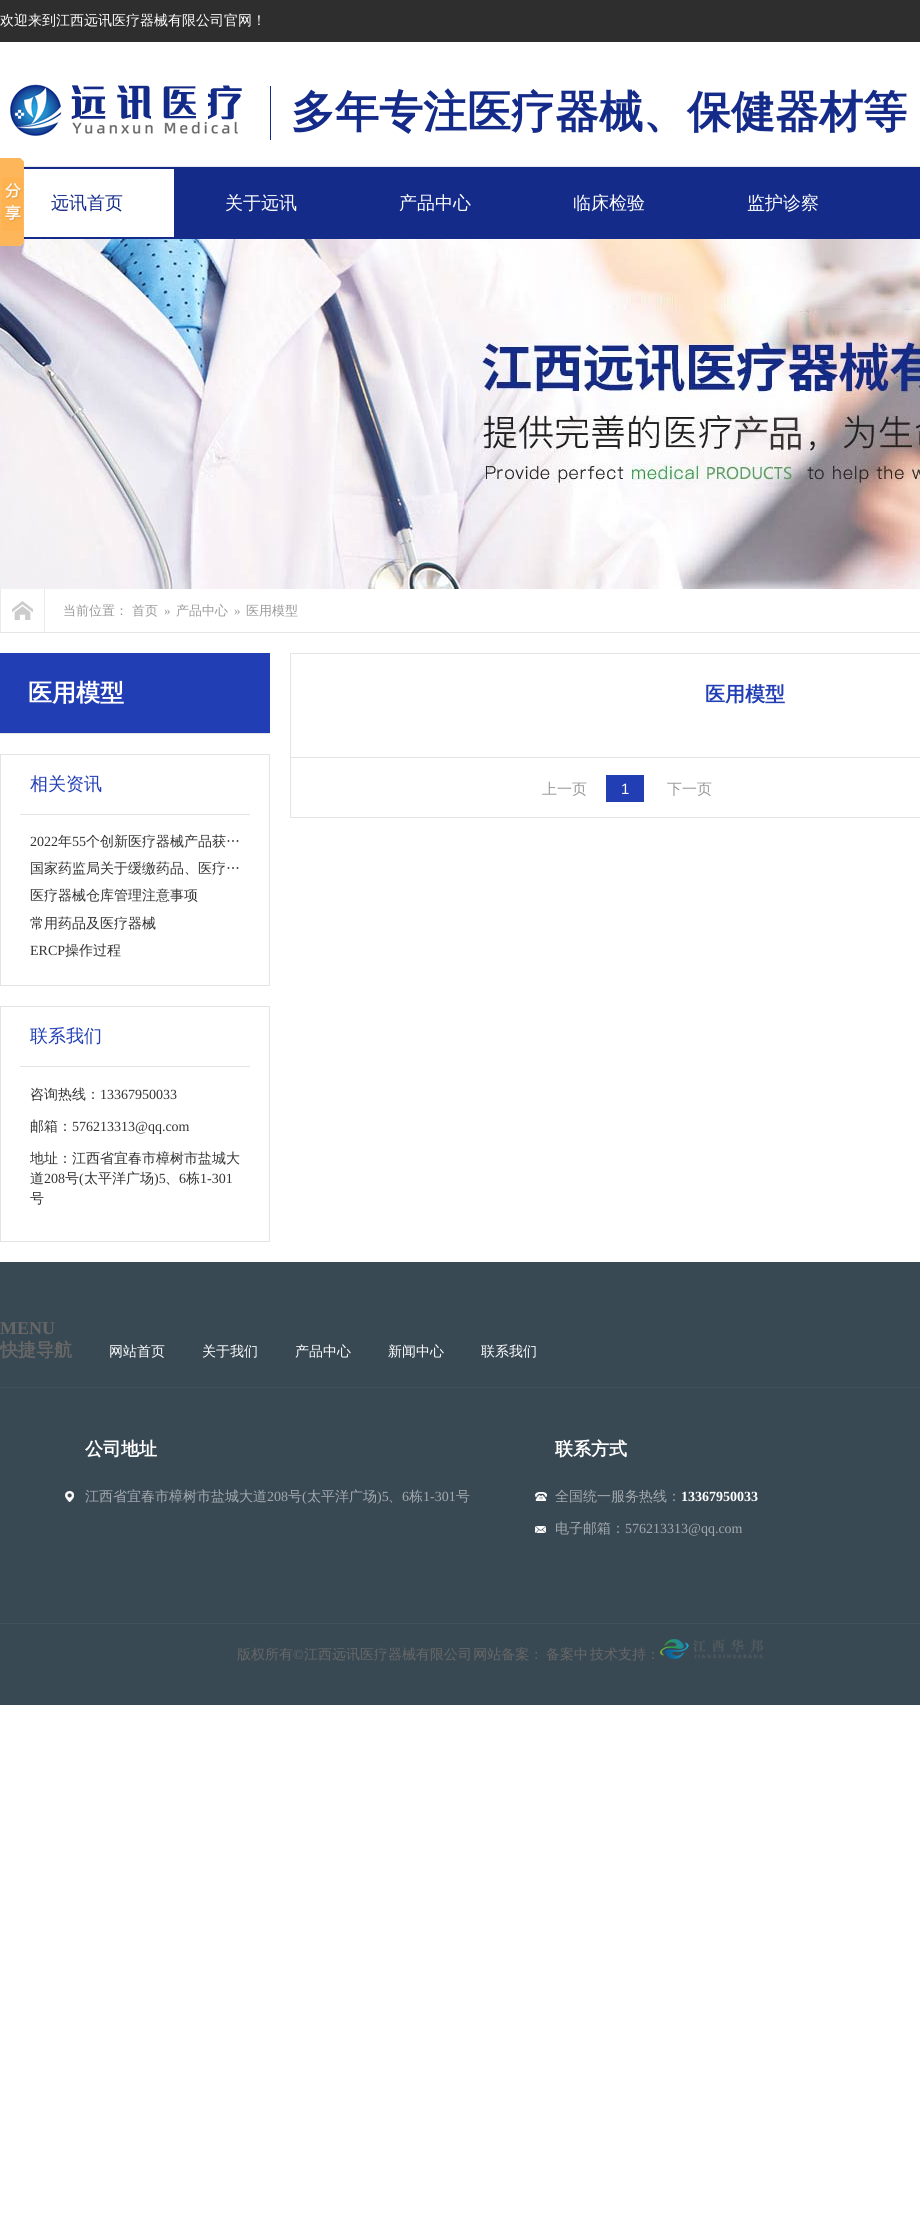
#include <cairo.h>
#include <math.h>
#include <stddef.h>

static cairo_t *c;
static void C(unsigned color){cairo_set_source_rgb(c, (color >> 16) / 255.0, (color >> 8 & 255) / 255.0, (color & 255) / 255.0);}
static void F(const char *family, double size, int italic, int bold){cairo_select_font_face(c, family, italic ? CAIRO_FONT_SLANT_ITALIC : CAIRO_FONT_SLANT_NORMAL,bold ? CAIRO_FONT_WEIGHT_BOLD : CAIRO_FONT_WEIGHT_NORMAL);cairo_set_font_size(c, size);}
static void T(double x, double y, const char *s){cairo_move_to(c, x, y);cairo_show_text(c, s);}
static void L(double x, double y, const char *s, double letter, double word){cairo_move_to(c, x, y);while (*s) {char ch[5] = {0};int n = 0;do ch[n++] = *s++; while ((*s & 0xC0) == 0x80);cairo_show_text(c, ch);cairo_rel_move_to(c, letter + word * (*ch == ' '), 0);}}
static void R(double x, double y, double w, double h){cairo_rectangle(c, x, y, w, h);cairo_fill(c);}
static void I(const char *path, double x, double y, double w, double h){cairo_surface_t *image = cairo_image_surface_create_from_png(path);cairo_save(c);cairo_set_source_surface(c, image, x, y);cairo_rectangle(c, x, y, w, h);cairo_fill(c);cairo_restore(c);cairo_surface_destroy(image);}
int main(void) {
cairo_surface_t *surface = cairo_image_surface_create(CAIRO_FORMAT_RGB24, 920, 2217);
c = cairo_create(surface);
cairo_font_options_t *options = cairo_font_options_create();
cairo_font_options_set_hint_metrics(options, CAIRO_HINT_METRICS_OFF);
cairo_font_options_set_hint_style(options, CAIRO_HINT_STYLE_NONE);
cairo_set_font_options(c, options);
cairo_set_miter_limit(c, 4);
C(0xffffff);
cairo_paint(c);
C(0x2e2e2e);
R(0,0,920,42);
F("WenQuanYi Zen Hei Medium",14,0,0);
C(0xffffff);
T(0,25,"欢迎来到江西远讯医疗器械有限公司官网！");
C(0xe9e9e9);
R(24,166,896,1);
I("1.png",10,84,232,52);
C(0x142b89);
R(270,86,1,54);
F("WenQuanYi Zen Hei",44,0,1);
T(291,127,"多年专注医疗器械、保健器材等");
I("3.png",0,239,920,350);
I("2.png",0,158,24,88);
R(24,167,896,72);
C(0xffffff);
R(24,169,150,68);
F("WenQuanYi Zen Hei Medium",18,0,0);
C(0x142b89);
T(51,209,"远讯首页");
C(0xffffff);
T(225,209,"关于远讯");
T(399,209,"产品中心");
T(573,209,"临床检验");
T(747,209,"监护诊察");
C(0xe4e4e4);
R(0,632,920,1);
I("4.png",12,601,21,19);
C(0xeaeaea);
R(44,589,1,43);
R(0,589,1,43);
F("WenQuanYi Zen Hei Medium",13,0,0);
C(0x999999);
T(63,615,"当前位置： 首页");
F("Liberation Serif",13,0,0);
T(164,615,"»");
F("WenQuanYi Zen Hei Medium",13,0,0);
T(176,615,"产品中心");
F("Liberation Serif",13,0,0);
T(234,615,"»");
F("WenQuanYi Zen Hei Medium",13,0,0);
T(246,615,"医用模型");
C(0x213eb4);
R(0,653,270,80);
F("WenQuanYi Zen Hei",24,0,1);
C(0xffffff);
T(28,701,"医用模型");
C(0xe4e4e4);
R(0,733,270,1);
cairo_rectangle(c,.5,754.5,269,231);
cairo_set_line_width(c,1);
cairo_stroke(c);
R(20,814,230,1);
F("WenQuanYi Zen Hei Medium",18,0,0);
C(0x213eb4);
T(30,790,"相关资讯");
F("Liberation Serif",14,0,0);
C(0x333333);
T(30,846,"2022");
F("WenQuanYi Zen Hei Medium",14,0,0);
T(58,846,"年");
F("Liberation Serif",14,0,0);
T(72,846,"55");
F("WenQuanYi Zen Hei Medium",14,0,0);
T(86,846,"个创新医疗器械产品获…");
T(30,873,"国家药监局关于缓缴药品、医疗…");
T(30,900,"医疗器械仓库管理注意事项");
T(30,928,"常用药品及医疗器械");
F("Liberation Serif",14,0,0);
T(30,955,"ERCP");
F("WenQuanYi Zen Hei Medium",14,0,0);
T(65,955,"操作过程");
cairo_rectangle(c,.5,1006.5,269,235);
C(0xe4e4e4);
cairo_stroke(c);
R(20,1066,230,1);
F("WenQuanYi Zen Hei Medium",18,0,0);
C(0x213eb4);
T(30,1042,"联系我们");
F("WenQuanYi Zen Hei Medium",14,0,0);
C(0x333333);
T(30,1099,"咨询热线：");
F("Liberation Serif",14,0,0);
T(100,1099,"13367950033");
F("WenQuanYi Zen Hei Medium",14,0,0);
T(30,1131,"邮箱：");
F("Liberation Serif",14,0,0);
T(72,1131,"576213313@qq.com");
F("WenQuanYi Zen Hei Medium",14,0,0);
T(30,1163,"地址：江西省宜春市樟树市盐城大");
T(30,1183,"道");
F("Liberation Serif",14,0,0);
T(44,1183,"208");
F("WenQuanYi Zen Hei Medium",14,0,0);
T(65,1183,"号");
F("Liberation Serif",14,0,0);
T(79,1183,"(");
F("WenQuanYi Zen Hei Medium",14,0,0);
T(84,1183,"太平洋广场");
F("Liberation Serif",14,0,0);
T(154,1183,")5");
F("WenQuanYi Zen Hei Medium",14,0,0);
T(165,1183,"、");
F("Liberation Serif",14,0,0);
T(179,1183,"6");
F("WenQuanYi Zen Hei Medium",14,0,0);
T(186,1183,"栋");
F("Liberation Serif",14,0,0);
T(200,1183,"1-301");
F("WenQuanYi Zen Hei Medium",14,0,0);
T(30,1203,"号");
cairo_rectangle(c,290.5,653.5,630,164);
C(0xe4e4e4);
cairo_stroke(c);
F("WenQuanYi Zen Hei",20,0,1);
C(0x213eb4);
T(705,701,"医用模型");
C(0xe4e4e4);
R(291,757,629,1);
F("WenQuanYi Zen Hei Medium",15,0,0);
C(0x999999);
T(542,794,"上一页");
C(0x213eb4);
R(606,775,38,27);
F("Liberation Sans",15,0,0);
C(0xffffff);
T(621,794,"1");
F("WenQuanYi Zen Hei Medium",15,0,0);
C(0x999999);
T(667,794,"下一页");
C(0x394954);
R(0,1262,920,361);
C(0x41525e);
R(0,1387,920,1);
F("Liberation Serif",18,0,1);
C(0x666666);
T(0,1334,"MENU");
F("WenQuanYi Zen Hei",18,0,1);
T(0,1356,"快捷导航");
F("WenQuanYi Zen Hei Medium",14,0,0);
C(0xffffff);
T(109,1356,"网站首页");
T(202,1356,"关于我们");
T(295,1356,"产品中心");
T(388,1356,"新闻中心");
T(481,1356,"联系我们");
F("WenQuanYi Zen Hei",18,0,1);
T(85,1455,"公司地址");
I("5.png",65,1491,9,11);
F("WenQuanYi Zen Hei Medium",14,0,0);
C(0xa2a9ae);
T(85,1501,"江西省宜春市樟树市盐城大道");
F("Liberation Serif",14,0,0);
T(267,1501,"208");
F("WenQuanYi Zen Hei Medium",14,0,0);
T(288,1501,"号");
F("Liberation Serif",14,0,0);
T(302,1501,"(");
F("WenQuanYi Zen Hei Medium",14,0,0);
T(307,1501,"太平洋广场");
F("Liberation Serif",14,0,0);
T(377,1501,")5");
F("WenQuanYi Zen Hei Medium",14,0,0);
T(388,1501,"、");
F("Liberation Serif",14,0,0);
T(402,1501,"6");
F("WenQuanYi Zen Hei Medium",14,0,0);
T(409,1501,"栋");
F("Liberation Serif",14,0,0);
T(423,1501,"1-301");
F("WenQuanYi Zen Hei Medium",14,0,0);
T(456,1501,"号");
F("WenQuanYi Zen Hei",18,0,1);
C(0xffffff);
T(555,1455,"联系方式");
I("6.png",535,1492,12,9);
F("WenQuanYi Zen Hei Medium",14,0,0);
C(0xa2a9ae);
T(555,1501,"全国统一服务热线：");
F("Liberation Serif",14,0,1);
C(0xffffff);
T(681,1501,"13367950033");
I("7.png",535,1526,11,7);
F("WenQuanYi Zen Hei Medium",14,0,0);
C(0xa2a9ae);
T(555,1533,"电子邮箱：");
F("Liberation Serif",14,0,0);
T(625,1533,"576213313@qq.com");
C(0x394954);
R(0,1624,920,81);
C(0x41525e);
R(0,1623,920,1);
F("WenQuanYi Zen Hei Medium",14,0,0);
C(0x666666);
T(237,1659,"版权所有");
F("Liberation Serif",14,0,0);
T(293,1659,"©");
F("WenQuanYi Zen Hei Medium",14,0,0);
L(304,1659,"江西远讯医疗器械有限公司 网站备案：",0,-3);
T(546,1659,"备案中");
T(590,1659,"技术支持：");
I("8.png",660,1639,103,20);
cairo_surface_write_to_png(surface, "o.png");
cairo_font_options_destroy(options);
cairo_destroy(c);
cairo_surface_destroy(surface);
return 0;
}
